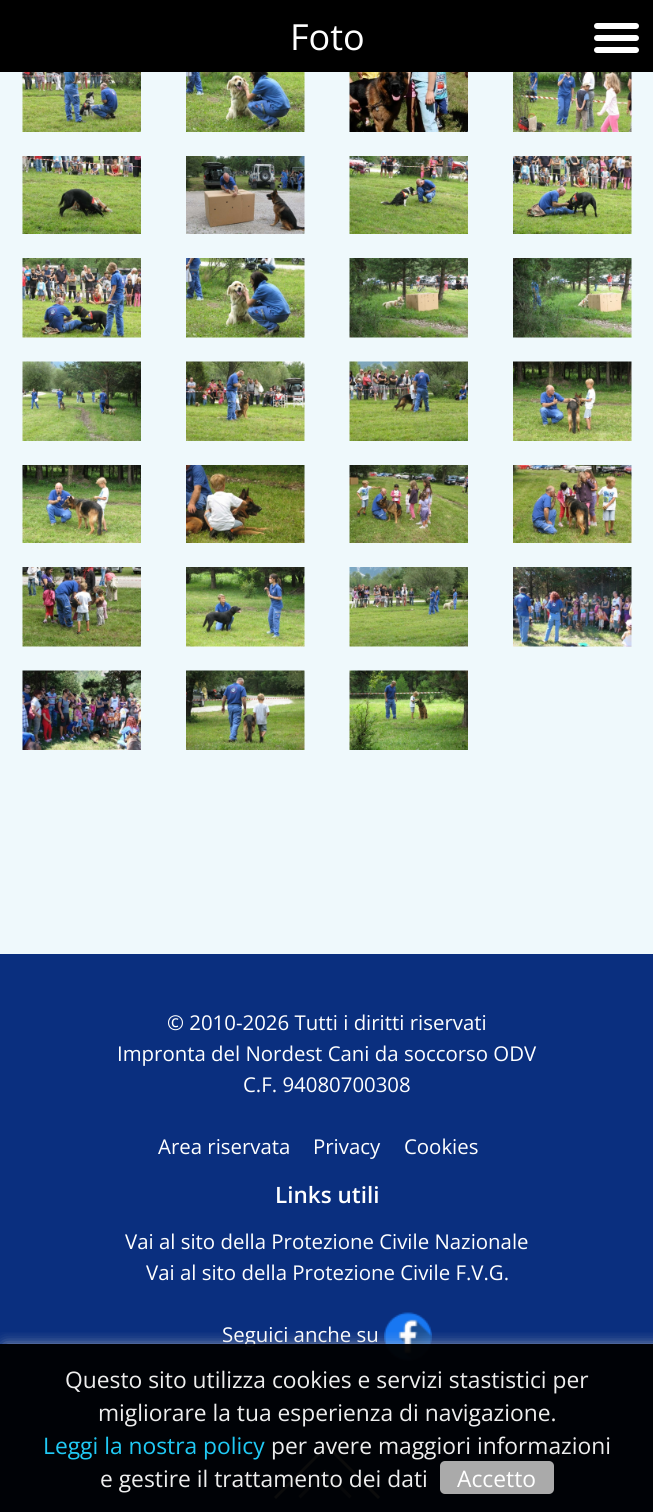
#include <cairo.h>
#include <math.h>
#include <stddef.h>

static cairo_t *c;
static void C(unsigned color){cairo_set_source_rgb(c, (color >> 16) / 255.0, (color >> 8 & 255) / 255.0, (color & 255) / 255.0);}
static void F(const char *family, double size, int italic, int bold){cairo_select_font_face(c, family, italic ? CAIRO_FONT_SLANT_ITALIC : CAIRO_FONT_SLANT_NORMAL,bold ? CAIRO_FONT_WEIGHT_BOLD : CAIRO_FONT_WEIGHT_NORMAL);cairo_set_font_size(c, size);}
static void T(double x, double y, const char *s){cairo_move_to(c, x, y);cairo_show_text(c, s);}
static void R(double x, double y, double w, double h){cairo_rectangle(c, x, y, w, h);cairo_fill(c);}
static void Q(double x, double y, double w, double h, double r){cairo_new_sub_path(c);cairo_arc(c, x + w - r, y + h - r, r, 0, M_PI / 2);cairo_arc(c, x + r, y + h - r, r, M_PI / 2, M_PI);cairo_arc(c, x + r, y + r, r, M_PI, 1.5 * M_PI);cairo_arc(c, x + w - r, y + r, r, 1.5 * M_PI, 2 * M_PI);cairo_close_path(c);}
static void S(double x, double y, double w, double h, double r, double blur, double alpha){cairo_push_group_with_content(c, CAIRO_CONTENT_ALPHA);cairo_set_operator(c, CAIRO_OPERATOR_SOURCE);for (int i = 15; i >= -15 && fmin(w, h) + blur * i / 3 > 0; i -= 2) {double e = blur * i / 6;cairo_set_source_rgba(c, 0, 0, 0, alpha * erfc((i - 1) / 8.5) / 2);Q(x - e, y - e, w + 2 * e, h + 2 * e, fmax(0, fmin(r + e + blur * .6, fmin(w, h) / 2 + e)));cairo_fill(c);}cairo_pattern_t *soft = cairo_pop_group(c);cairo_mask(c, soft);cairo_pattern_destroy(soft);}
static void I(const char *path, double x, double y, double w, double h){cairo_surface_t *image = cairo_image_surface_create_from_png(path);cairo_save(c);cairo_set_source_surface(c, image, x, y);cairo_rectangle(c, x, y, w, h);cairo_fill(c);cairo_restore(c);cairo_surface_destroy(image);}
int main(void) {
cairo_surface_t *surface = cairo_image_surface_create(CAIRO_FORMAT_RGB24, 653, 1512);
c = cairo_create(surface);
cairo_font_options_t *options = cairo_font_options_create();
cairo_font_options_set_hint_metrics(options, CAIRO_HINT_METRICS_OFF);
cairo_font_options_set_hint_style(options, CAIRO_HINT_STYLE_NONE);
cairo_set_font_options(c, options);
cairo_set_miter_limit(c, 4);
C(0xeff9fc);
cairo_paint(c);
C(0x000000);
R(0,0,653,72);
F("Open Sans",36,0,0);
C(0xffffff);
T(290,50,"Foto");
Q(594,35,45,6,3);
cairo_fill(c);
Q(594,23,45,6,3);
cairo_fill(c);
Q(594,47,45,6,3);
cairo_fill(c);
I("1.png",22,72,119,60);
I("2.png",186,72,119,60);
I("3.png",349,72,119,60);
I("4.png",513,72,119,60);
I("5.png",22,156,119,78);
I("6.png",186,156,119,78);
I("7.png",349,156,119,78);
I("8.png",513,156,119,78);
I("9.png",22,258,119,80);
I("10.png",186,258,119,80);
I("11.png",349,258,119,80);
I("12.png",513,258,119,80);
I("13.png",22,361,119,80);
I("14.png",186,361,119,80);
I("15.png",349,361,119,80);
I("16.png",513,361,119,80);
I("17.png",22,465,119,78);
I("18.png",186,465,119,78);
I("19.png",349,465,119,78);
I("20.png",513,465,119,78);
I("21.png",22,567,119,80);
I("22.png",186,567,119,80);
I("23.png",349,567,119,80);
I("24.png",513,567,119,80);
I("25.png",22,670,119,80);
I("26.png",186,670,119,80);
I("27.png",349,670,119,80);
C(0x0a2f7f);
R(0,954,653,558);
F("Open Sans",20.4,0,0);
C(0xffffff);
T(167,1030,"© 2010-2026 Tutti i diritti riservati");
T(117,1061,"Impronta del Nordest Cani da soccorso ODV");
T(243,1092,"C.F. 94080700308");
T(158,1154,"Area riservata");
T(313,1154,"Privacy");
T(404,1154,"Cookies");
F("Open Sans SemiBold",22.5,0,0);
T(275,1203,"Links utili");
F("Open Sans",20.4,0,0);
T(125,1249,"Vai al sito della Protezione Civile Nazionale");
T(146,1280,"Vai al sito della Protezione Civile F.V.G.");
T(222,1342,"Seguici anche su");
I("28.png",384,1312,48,49);
cairo_new_path(c);
cairo_move_to(c,276,1499);
cairo_line_to(c,274,1497);
cairo_line_to(c,327,1444);
cairo_line_to(c,329,1446);
cairo_close_path(c);
cairo_fill(c);
cairo_new_path(c);
cairo_move_to(c,378,1499);
cairo_line_to(c,325,1446);
cairo_line_to(c,327,1444);
cairo_line_to(c,380,1497);
cairo_close_path(c);
cairo_fill(c);
C(0x9daccc);
cairo_new_path(c);
cairo_move_to(c,300.5,1498.5);
cairo_line_to(c,298.5,1496);
cairo_line_to(c,325,1469.5);
cairo_line_to(c,327,1472);
cairo_close_path(c);
cairo_fill(c);
cairo_new_path(c);
cairo_move_to(c,349.5,1498.5);
cairo_line_to(c,323,1472);
cairo_line_to(c,325,1469.5);
cairo_line_to(c,351.5,1496);
cairo_close_path(c);
cairo_fill(c);
cairo_save(c);
cairo_rectangle(c,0,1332,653,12);
cairo_clip(c);
C(0xcccccc);
S(5,1347,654,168,0,7.5,1);
cairo_restore(c);
cairo_set_source_rgba(c,0,0,0,0.95);
R(0,1344,653,168);
F("Open Sans",22.8,0,0);
C(0xeeeeee);
T(65,1388,"Questo sito utilizza cookies e servizi stastistici per");
T(98,1421,"migliorare la tua esperienza di navigazione.");
C(0x20caf5);
T(43,1454,"Leggi la nostra policy");
C(0xeeeeee);
T(271,1454,"per avere maggiori informazioni");
T(100,1487,"e gestire il trattamento dei dati");
C(0xaaaaaa);
Q(440,1461,114,33,5);
cairo_fill(c);
C(0xffffff);
T(457,1487,"Accetto");
cairo_surface_write_to_png(surface, "o.png");
cairo_font_options_destroy(options);
cairo_destroy(c);
cairo_surface_destroy(surface);
return 0;
}
